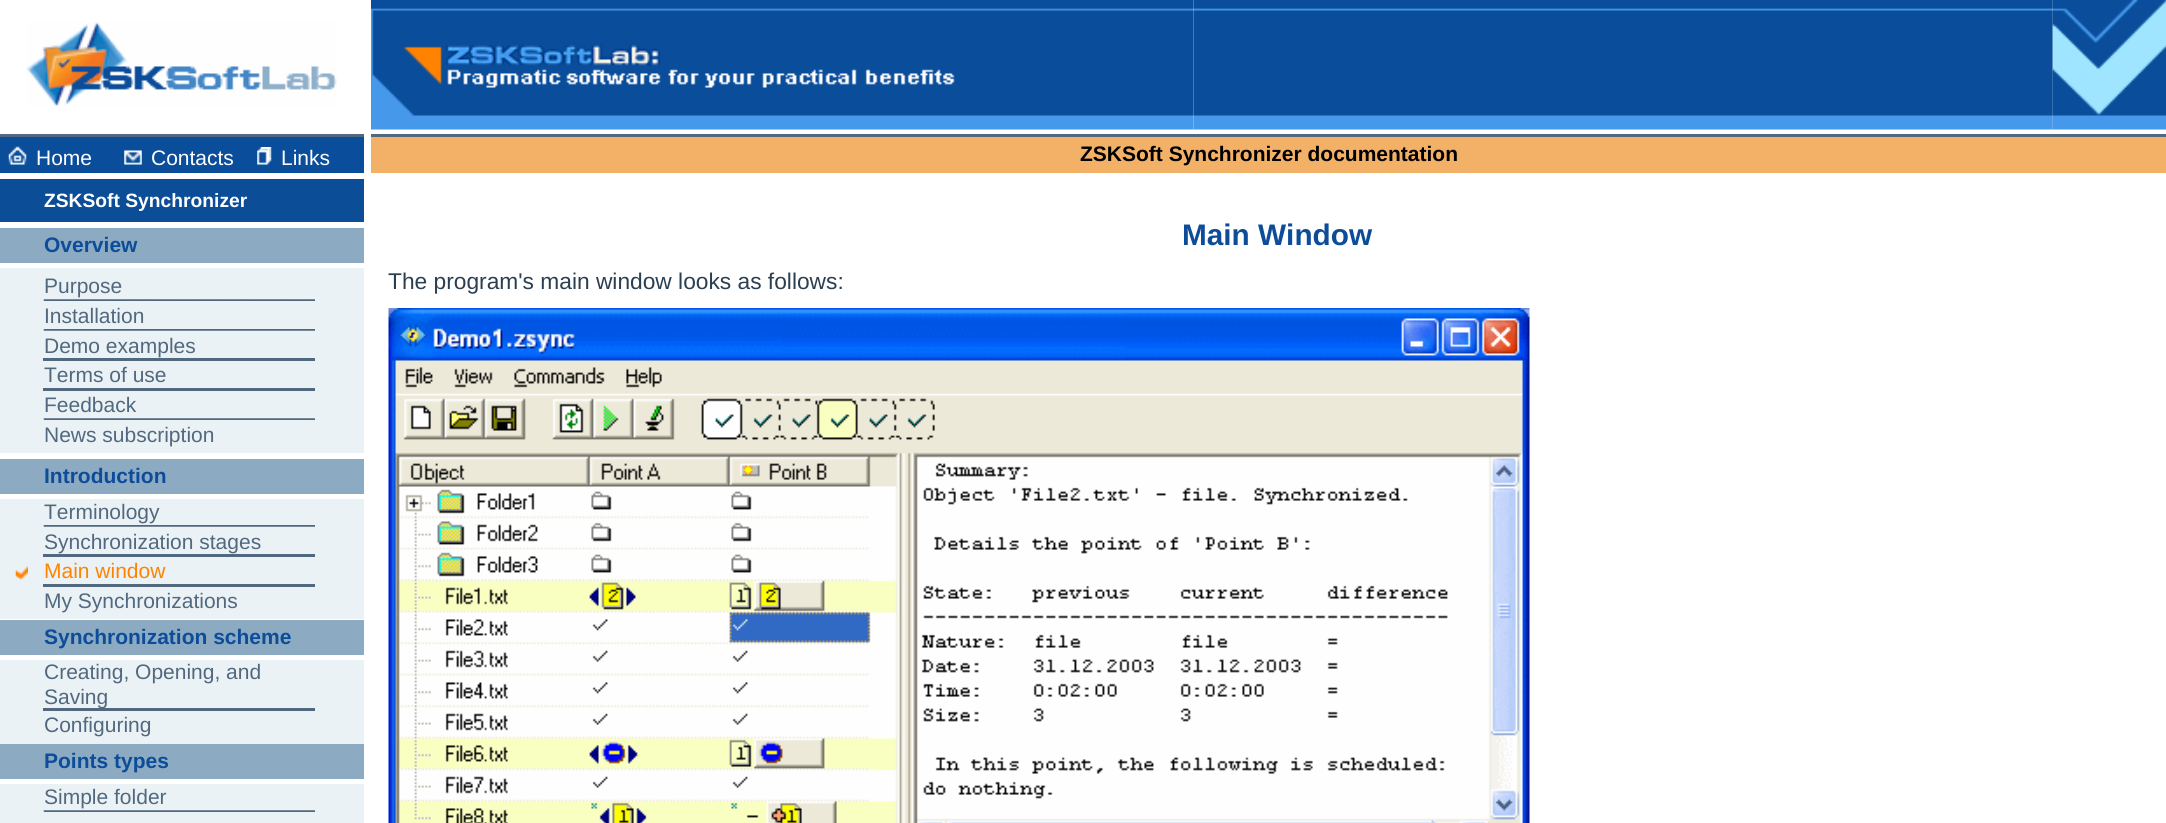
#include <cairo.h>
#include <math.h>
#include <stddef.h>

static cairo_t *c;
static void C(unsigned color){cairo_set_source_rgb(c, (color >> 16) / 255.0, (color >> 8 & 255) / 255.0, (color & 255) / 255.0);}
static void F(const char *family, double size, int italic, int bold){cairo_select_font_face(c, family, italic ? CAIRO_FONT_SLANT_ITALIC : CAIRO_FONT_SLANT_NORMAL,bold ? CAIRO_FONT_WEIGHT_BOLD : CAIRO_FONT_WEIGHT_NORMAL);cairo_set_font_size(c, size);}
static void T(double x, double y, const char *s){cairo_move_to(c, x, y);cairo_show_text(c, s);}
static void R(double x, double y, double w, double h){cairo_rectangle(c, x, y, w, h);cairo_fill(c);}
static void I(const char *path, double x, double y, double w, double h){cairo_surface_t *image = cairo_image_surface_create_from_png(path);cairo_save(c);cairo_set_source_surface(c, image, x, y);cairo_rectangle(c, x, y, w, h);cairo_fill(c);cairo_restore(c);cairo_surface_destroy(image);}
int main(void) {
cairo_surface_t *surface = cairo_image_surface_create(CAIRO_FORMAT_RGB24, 2166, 823);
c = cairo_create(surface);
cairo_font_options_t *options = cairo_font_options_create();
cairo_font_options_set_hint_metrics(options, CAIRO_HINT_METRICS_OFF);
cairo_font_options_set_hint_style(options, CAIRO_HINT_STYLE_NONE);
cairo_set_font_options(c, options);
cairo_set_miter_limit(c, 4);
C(0xffffff);
cairo_paint(c);
I("1.png",26,22,311,84);
I("3.png",1193,0,860,130);
I("2.png",371,0,823,130);
I("4.png",2052,0,114,130);
C(0x0a4d9a);
R(0,137,364,36);
C(0x52687f);
R(0,134,364,3);
I("5.png",8,146,19,19);
F("Liberation Sans",21,0,0);
C(0xfffeff);
T(36,165,"Home");
I("6.png",124,150,18,15);
T(151,165,"Contacts");
I("7.png",257,147,15,18);
T(281,165,"Links");
C(0xf3b167);
R(371,137,1795,36);
C(0x52687f);
R(371,134,1795,3);
F("Liberation Sans",21,0,1);
C(0x000000);
T(1080,161,"ZSKSoft Synchronizer documentation");
C(0x0b4d97);
R(0,179,364,43);
F("Liberation Sans",19.25,0,1);
C(0xfffeff);
T(44,207,"ZSKSoft Synchronizer");
C(0x8cabc3);
R(0,228,364,35);
F("Liberation Sans",21,0,1);
C(0x0d4c99);
T(44,252,"Overview");
C(0xebf2f5);
R(0,268,364,185);
F("Liberation Sans",21,0,0);
C(0x51687f);
T(44,293,"Purpose");
I("8.png",43,299,272,2);
T(44,323,"Installation");
I("9.png",43,329,272,2);
T(44,353,"Demo examples");
R(43,358,272,3);
T(44,382,"Terms of use");
R(43,388,272,3);
T(44,412,"Feedback");
I("8.png",43,418,272,2);
T(44,442,"News subscription");
C(0x8cabc3);
R(0,459,364,35);
F("Liberation Sans",21,0,1);
C(0x0d4c99);
T(44,483,"Introduction");
C(0xebf2f5);
R(0,499,364,120);
F("Liberation Sans",21,0,0);
C(0x51687f);
T(44,519,"Terminology");
I("9.png",43,525,272,2);
T(44,549,"Synchronization stages");
R(43,554,272,3);
I("10.png",15,565,13,15);
C(0xff8200);
T(44,578,"Main window");
C(0x51687f);
R(43,584,272,3);
T(44,608,"My Synchronizations");
C(0x8cabc3);
R(0,620,364,35);
F("Liberation Sans",21,0,1);
C(0x0d4c99);
T(44,644,"Synchronization scheme");
C(0xebf2f5);
R(0,660,364,84);
F("Liberation Sans",21,0,0);
C(0x51687f);
T(44,679,"Creating, Opening, and");
T(44,704,"Saving");
R(43,708,272,3);
T(44,732,"Configuring");
C(0x8cabc3);
R(0,744,364,35);
F("Liberation Sans",21,0,1);
C(0x0d4c99);
T(44,768,"Points types");
C(0xebf2f5);
R(0,784,364,39);
F("Liberation Sans",21,0,0);
C(0x51687f);
T(44,804,"Simple folder");
I("8.png",43,810,272,2);
F("Liberation Sans",29.75,0,1);
C(0x0d4c99);
T(1182,245,"Main Window");
F("Liberation Sans",22.75,0,0);
C(0x2b3f50);
T(388,289,"The program's main window looks as follows:");
I("11.png",388,308,1142,515);
cairo_surface_write_to_png(surface, "o.png");
cairo_font_options_destroy(options);
cairo_destroy(c);
cairo_surface_destroy(surface);
return 0;
}
